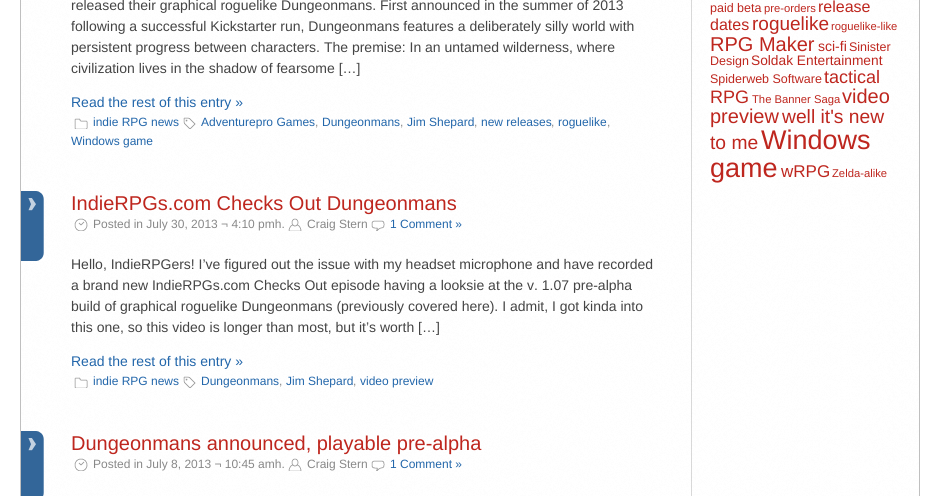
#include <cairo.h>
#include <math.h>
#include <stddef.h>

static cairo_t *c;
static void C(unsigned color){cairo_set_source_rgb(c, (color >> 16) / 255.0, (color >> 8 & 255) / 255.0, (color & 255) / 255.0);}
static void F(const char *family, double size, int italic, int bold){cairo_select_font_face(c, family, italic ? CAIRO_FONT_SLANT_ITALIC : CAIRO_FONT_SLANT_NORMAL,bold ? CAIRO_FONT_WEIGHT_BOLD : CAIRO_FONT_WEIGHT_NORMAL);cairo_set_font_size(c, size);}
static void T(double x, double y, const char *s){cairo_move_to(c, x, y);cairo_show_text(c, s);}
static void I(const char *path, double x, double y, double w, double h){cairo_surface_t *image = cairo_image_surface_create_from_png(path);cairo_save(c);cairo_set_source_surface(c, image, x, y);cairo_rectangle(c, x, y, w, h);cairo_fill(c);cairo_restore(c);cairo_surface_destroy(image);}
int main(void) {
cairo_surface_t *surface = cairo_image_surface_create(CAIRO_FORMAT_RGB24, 929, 496);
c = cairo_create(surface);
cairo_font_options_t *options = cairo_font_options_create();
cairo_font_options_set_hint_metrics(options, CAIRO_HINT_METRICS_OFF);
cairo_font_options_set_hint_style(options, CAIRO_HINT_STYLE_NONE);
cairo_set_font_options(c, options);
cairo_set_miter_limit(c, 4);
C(0xffffff);
cairo_paint(c);
I("1.png",20,0,900,496);
F("Liberation Sans",14,0,0);
C(0x444444);
T(71,10,"released their graphical roguelike Dungeonmans. First announced in the summer of 2013");
T(71,31,"following a successful Kickstarter run, Dungeonmans features a deliberately silly world with");
T(71,52,"persistent progress between characters. The premise: In an untamed wilderness, where");
T(71,73,"civilization lives in the shadow of fearsome […]");
C(0x2266aa);
T(71,107,"Read the rest of this entry »");
I("2.png",74,118,14,11);
F("Liberation Sans",12,0,0);
T(93,126,"indie RPG news");
I("3.png",183,117,13,12);
T(201,126,"Adventurepro Games");
C(0x888888);
T(315,126,",");
C(0x2266aa);
T(322,126,"Dungeonmans");
C(0x888888);
T(400,126,",");
C(0x2266aa);
T(407,126,"Jim Shepard");
C(0x888888);
T(474,126,",");
C(0x2266aa);
T(481,126,"new releases");
C(0x888888);
T(551,126,",");
C(0x2266aa);
T(558,126,"roguelike");
C(0x888888);
T(607,126,",");
C(0x2266aa);
T(71,145,"Windows game");
I("4.png",21,191,23,70);
F("Liberation Sans",20,0,0);
C(0xbe261e);
T(71,210,"IndieRPGs.com Checks Out Dungeonmans");
I("5.png",74,218,14,13);
F("Liberation Sans",12,0,0);
C(0x888888);
T(93,228,"Posted in July 30, 2013 ¬ 4:10 pmh.");
I("6.png",288,218,14,13);
T(307,228,"Craig Stern");
I("7.png",371,220,14,11);
C(0x2266aa);
T(390,228,"1 Comment »");
F("Liberation Sans",14,0,0);
C(0x444444);
T(71,269,"Hello, IndieRPGers! I’ve figured out the issue with my headset microphone and have recorded");
T(71,290,"a brand new IndieRPGs.com Checks Out episode having a looksie at the v. 1.07 pre-alpha");
T(71,311,"build of graphical roguelike Dungeonmans (previously covered here). I admit, I got kinda into");
T(71,332,"this one, so this video is longer than most, but it’s worth […]");
C(0x2266aa);
T(71,366,"Read the rest of this entry »");
I("2.png",74,377,14,11);
F("Liberation Sans",12,0,0);
T(93,385,"indie RPG news");
I("3.png",183,376,13,12);
T(201,385,"Dungeonmans");
C(0x888888);
T(279,385,",");
C(0x2266aa);
T(286,385,"Jim Shepard");
C(0x888888);
T(353,385,",");
C(0x2266aa);
T(360,385,"video preview");
I("8.png",21,431,23,65);
F("Liberation Sans",20,0,0);
C(0xbe261e);
T(71,450,"Dungeonmans announced, playable pre-alpha");
I("5.png",74,458,14,13);
F("Liberation Sans",12,0,0);
C(0x888888);
T(93,468,"Posted in July 8, 2013 ¬ 10:45 amh.");
I("6.png",288,458,14,13);
T(307,468,"Craig Stern");
I("7.png",371,460,14,11);
C(0x2266aa);
T(390,468,"1 Comment »");
F("Liberation Sans",12.5,0,0);
C(0xbe261e);
T(710,12,"paid beta");
F("Liberation Sans",11.25,0,0);
T(764,12,"pre-orders");
F("Liberation Sans",16,0,0);
T(818,12,"release");
T(710,30,"dates");
F("Liberation Sans",19,0,0);
T(752,30,"roguelike");
F("Liberation Sans",11.25,0,0);
T(831,30,"roguelike-like");
F("Liberation Sans",20,0,0);
T(710,51,"RPG Maker");
F("Liberation Sans",14,0,0);
T(818,51,"sci-fi");
F("Liberation Sans",12.5,0,0);
T(849,51,"Sinister");
T(710,65,"Design");
F("Liberation Sans",13.75,0,0);
T(751,65,"Soldak Entertainment");
F("Liberation Sans",12.5,0,0);
T(710,83,"Spiderweb Software");
F("Liberation Sans",18,0,0);
T(824,83,"tactical");
T(710,103,"RPG");
F("Liberation Sans",11.25,0,0);
T(752,103,"The Banner Saga");
F("Liberation Sans",20,0,0);
T(842,103,"video");
T(710,123,"preview");
F("Liberation Sans",19.25,0,0);
T(782,123,"well it's new");
T(710,149,"to me");
F("Liberation Sans",27,0,0);
T(761,149,"Windows");
T(710,177,"game");
F("Liberation Sans",17,0,0);
T(781,177,"wRPG");
F("Liberation Sans",11.25,0,0);
T(832,177,"Zelda-alike");
cairo_surface_write_to_png(surface, "o.png");
cairo_font_options_destroy(options);
cairo_destroy(c);
cairo_surface_destroy(surface);
return 0;
}
